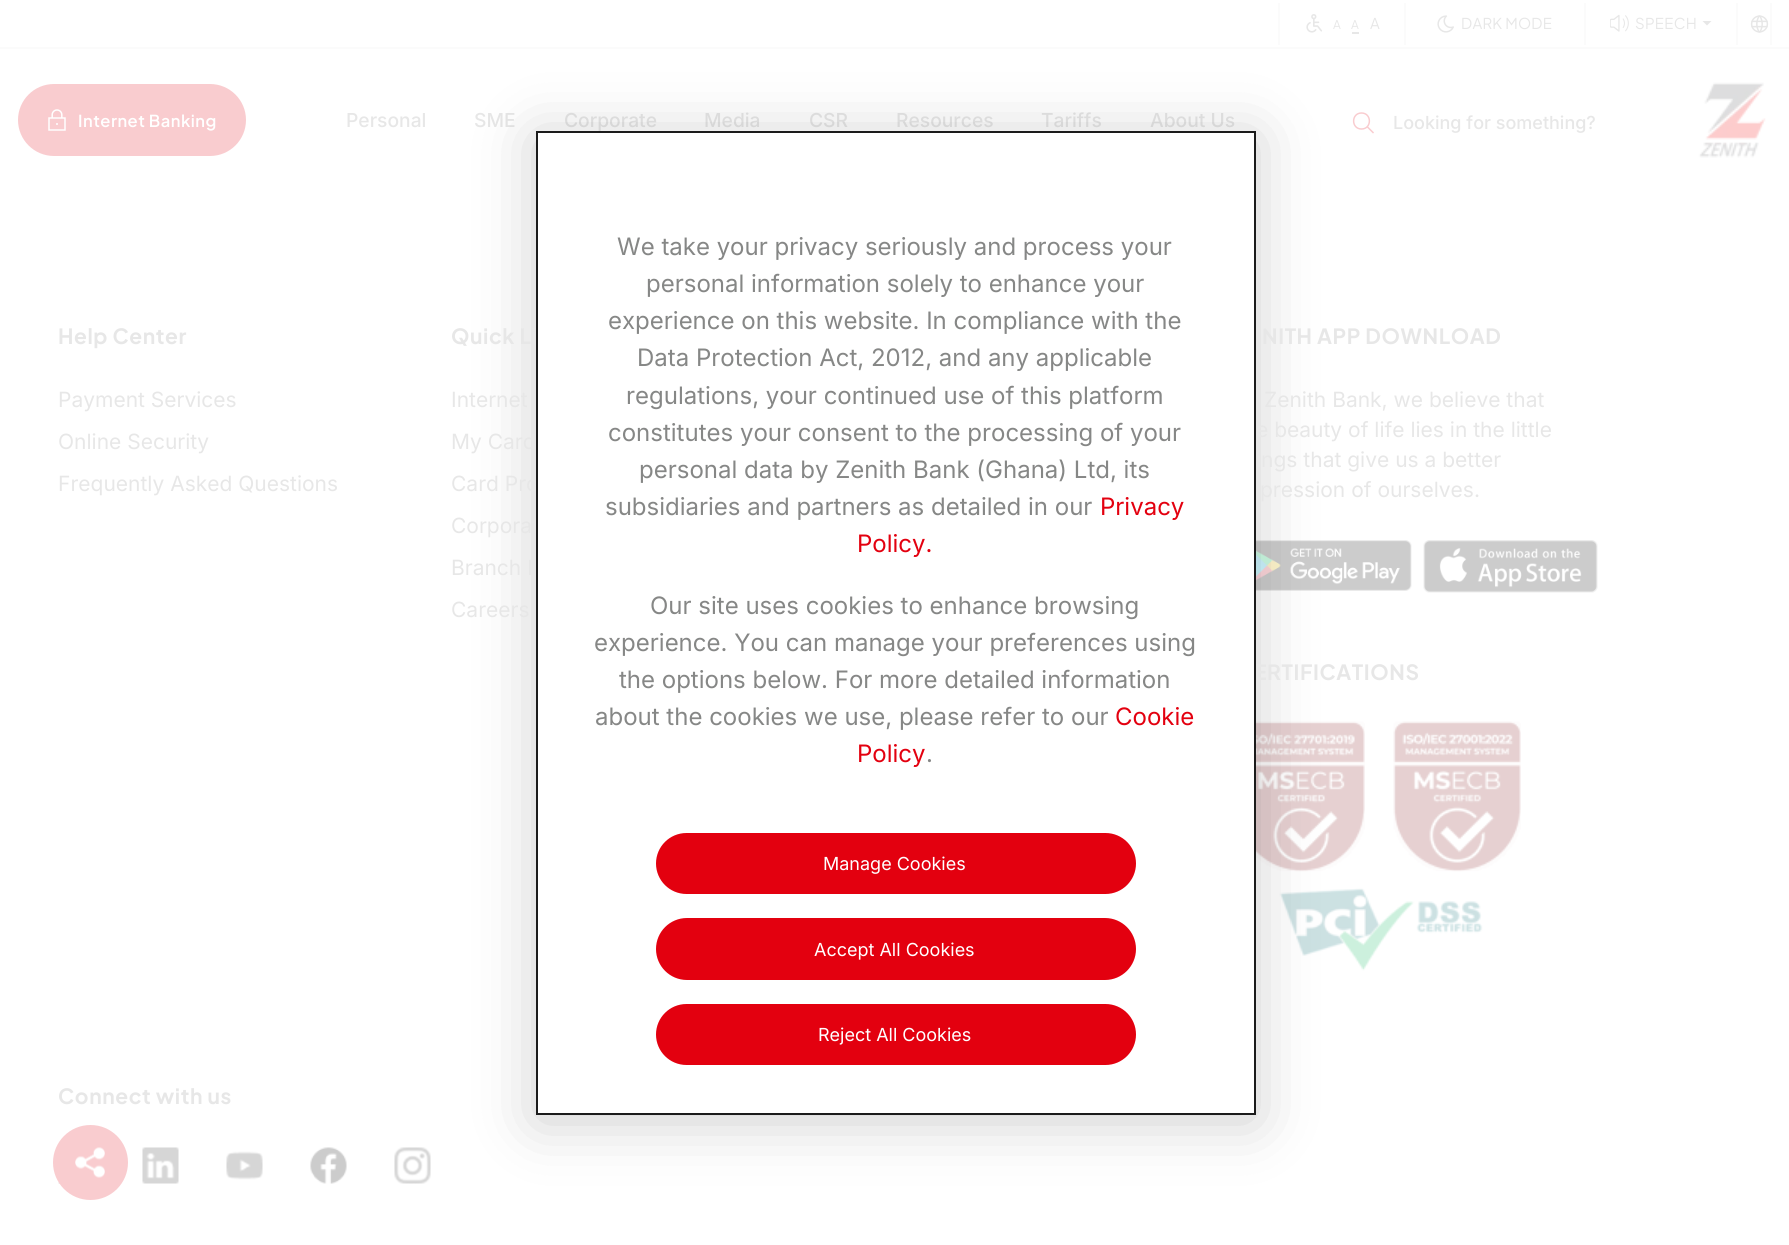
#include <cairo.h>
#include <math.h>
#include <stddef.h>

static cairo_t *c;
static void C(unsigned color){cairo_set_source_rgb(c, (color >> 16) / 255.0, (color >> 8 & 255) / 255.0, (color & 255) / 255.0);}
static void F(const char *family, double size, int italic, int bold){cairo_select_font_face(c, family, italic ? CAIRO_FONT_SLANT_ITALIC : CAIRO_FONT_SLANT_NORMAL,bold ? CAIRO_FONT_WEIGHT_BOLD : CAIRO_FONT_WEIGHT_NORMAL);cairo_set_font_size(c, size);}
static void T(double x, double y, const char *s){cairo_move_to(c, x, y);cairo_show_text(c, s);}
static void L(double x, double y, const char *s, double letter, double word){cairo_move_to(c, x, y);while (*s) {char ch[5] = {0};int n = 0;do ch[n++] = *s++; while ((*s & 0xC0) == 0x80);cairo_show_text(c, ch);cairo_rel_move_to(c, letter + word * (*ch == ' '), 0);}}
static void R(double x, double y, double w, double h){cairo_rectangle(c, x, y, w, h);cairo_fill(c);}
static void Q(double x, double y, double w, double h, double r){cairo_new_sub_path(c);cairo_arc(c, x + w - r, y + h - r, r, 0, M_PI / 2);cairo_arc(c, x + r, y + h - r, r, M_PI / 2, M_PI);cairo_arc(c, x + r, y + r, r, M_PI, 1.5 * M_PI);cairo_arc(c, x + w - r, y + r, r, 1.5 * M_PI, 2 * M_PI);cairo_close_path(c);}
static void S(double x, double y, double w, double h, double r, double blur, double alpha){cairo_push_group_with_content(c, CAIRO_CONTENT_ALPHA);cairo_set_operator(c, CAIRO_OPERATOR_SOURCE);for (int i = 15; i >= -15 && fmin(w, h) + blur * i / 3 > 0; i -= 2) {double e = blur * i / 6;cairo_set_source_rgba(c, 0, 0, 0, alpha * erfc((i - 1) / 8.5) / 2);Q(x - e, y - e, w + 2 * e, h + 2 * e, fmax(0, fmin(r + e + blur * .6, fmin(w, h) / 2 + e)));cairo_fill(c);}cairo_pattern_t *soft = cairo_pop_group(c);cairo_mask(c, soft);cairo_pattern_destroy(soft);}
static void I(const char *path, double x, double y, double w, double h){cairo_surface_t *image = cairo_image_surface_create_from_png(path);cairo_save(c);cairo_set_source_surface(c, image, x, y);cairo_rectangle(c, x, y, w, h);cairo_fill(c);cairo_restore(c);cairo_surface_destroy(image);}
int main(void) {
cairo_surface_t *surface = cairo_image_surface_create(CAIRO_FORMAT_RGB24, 1789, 1245);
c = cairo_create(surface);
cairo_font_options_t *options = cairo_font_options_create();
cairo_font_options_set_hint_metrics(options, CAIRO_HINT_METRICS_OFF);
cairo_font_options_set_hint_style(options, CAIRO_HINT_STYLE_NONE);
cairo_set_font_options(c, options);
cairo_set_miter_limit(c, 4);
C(0xffffff);
cairo_paint(c);
C(0xfbfbfb);
R(0,47,1789,2);
R(1404,3,2,42);
R(1278,3,2,42);
I("1.png",1306,14,17,19);
F("Plus Jakarta Sans",12,0,0);
C(0xe7e7e7);
L(1333,29,"A",.25,0);
L(1351,29,"A",.25,0);
R(1352,32,7,2);
F("Plus Jakarta Sans",15,0,0);
L(1370,29,"A",.25,0);
C(0xfbfbfb);
R(1584,3,2,42);
I("2.png",1437,15,17,18);
C(0xe7e7e7);
L(1461,29,"DARK MODE",.25,0);
C(0xfbfbfb);
R(1736,3,2,42);
I("3.png",1610,14,19,18);
C(0xe7e7e7);
L(1635,29,"SPEECH",.25,0);
cairo_new_path(c);
cairo_move_to(c,1702.5,21);
cairo_line_to(c,1711.5,21);
cairo_line_to(c,1707,25.5);
cairo_close_path(c);
cairo_fill(c);
C(0xfbfbfb);
R(1770,3,2,42);
I("4.png",1750,15,19,18);
C(0xf9cccf);
Q(18,84,228,72,36);
cairo_fill(c);
I("5.png",48,109,18,22);
F("Plus Jakarta Sans SemiBold",16.5,0,0);
C(0xffffff);
L(78,127,"Internet Banking",.5,0);
F("Inter Medium",19.25,0,0);
C(0xe7e7e7);
T(346,127,"Personal");
T(474,127,"SME");
T(564,127,"Corporate");
T(704,127,"Media");
T(809,127,"CSR");
T(896,127,"Resources");
T(1041,127,"Tariffs");
T(1150,127,"About Us");
cairo_new_path(c);
cairo_move_to(c,1373,132.5);
cairo_line_to(c,1367.5,127);
cairo_move_to(c,1361.5,129);
cairo_curve_to(c,1372,129,1372,113,1361.5,113);
cairo_curve_to(c,1351,113,1351,129,1361.5,129);
cairo_close_path(c);
C(0xf9cccf);
cairo_set_line_width(c,1.5);
cairo_set_line_cap(c,CAIRO_LINE_CAP_SQUARE);
cairo_stroke(c);
F("Inter Medium",18,0,0);
C(0xe7e7e7);
T(1393,129,"Looking for something?");
I("6.png",1698,82,68,76);
I("7.png",1256,540,156,51);
I("9.png",1256,721,109,151);
I("10.png",1393,721,128,151);
I("11.png",1279,871,204,100);
C(0x000000);
S(536,137,720,984,0,30,.2);
F("Inter",21,0,0);
C(0xe7e7e7);
T(451,491,"Card Pro");
T(451,533,"Corporat");
F("Plus Jakarta Sans",21,0,1);
L(1254,680,"ERTIFICATIONS",.6,0);
C(0xffffff);
cairo_rectangle(c,537,132,718,982);
cairo_fill_preserve(c);
C(0x1b1b1b);
cairo_set_line_width(c,2);
cairo_set_line_cap(c,CAIRO_LINE_CAP_BUTT);
cairo_stroke(c);
F("Inter",24,0,0);
C(0x868786);
T(617,255,"We take your privacy seriously and process your");
T(646,292,"personal information solely to enhance your");
T(608,329,"experience on this website. In compliance with the");
T(637,366,"Data Protection Act, 2012, and any applicable");
T(626,404,"regulations, your continued use of this platform");
T(608,441,"constitutes your consent to the processing of your");
T(639,478,"personal data by Zenith Bank (Ghana) Ltd, its");
T(605,515,"subsidiaries and partners as detailed in our");
C(0xe3000f);
T(1100,515,"Privacy");
T(857,552,"Policy.");
C(0x868786);
T(650,614,"Our site uses cookies to enhance browsing");
T(594,651,"experience. You can manage your preferences using");
T(619,688,"the options below. For more detailed information");
T(595,725,"about the cookies we use, please refer to our");
C(0xe3000f);
T(1115,725,"Cookie");
T(857,762,"Policy");
C(0x868786);
T(926,762,".");
C(0xe3000f);
Q(657,834,478,59,29.5);
cairo_fill_preserve(c);
cairo_stroke(c);
F("Inter",18,0,0);
C(0xffffff);
T(823,870,"Manage Cookies");
C(0xe3000f);
Q(657,919,478,60,30);
cairo_fill_preserve(c);
cairo_stroke(c);
C(0xffffff);
T(814,956,"Accept All Cookies");
C(0xe3000f);
Q(657,1005,478,59,29.5);
cairo_fill_preserve(c);
cairo_stroke(c);
C(0xffffff);
T(818,1041,"Reject All Cookies");
F("Plus Jakarta Sans",21,0,1);
C(0xe7e7e7);
L(58,344,"Help Center",.6,0);
F("Inter",21,0,0);
T(58,407,"Payment Services");
T(58,449,"Online Security");
T(58,491,"Frequently Asked Questions");
F("Plus Jakarta Sans",21,0,1);
L(451,344,"Quick Li",.6,0);
F("Inter",21,0,0);
T(451,407,"Internet");
T(451,449,"My Card");
T(451,575,"Branch I");
T(451,617,"Careers");
F("Plus Jakarta Sans",21,0,1);
L(1262,344,"NITH APP DOWNLOAD",.6,0);
F("Inter",21,0,0);
T(1264,407,"Zenith Bank, we believe that");
T(1256,437,"e beauty of life lies in the little");
T(1256,467,"ings that give us a better");
T(1260,497,"pression of ourselves.");
I("8.png",1423,540,175,53);
F("Plus Jakarta Sans",21,0,1);
L(58,1104,"Connect with us",.6,0);
I("12.png",142,1147,37,37);
I("13.png",226,1151,37,29);
I("14.png",310,1147,37,37);
I("15.png",394,1147,37,37);
I("16.png",58,1182,2,2);
C(0xf9cccf);
cairo_arc(c,90.5,1162.5,37.5,0,2 * M_PI);
cairo_fill(c);
I("17.png",75,1147,30,31);
cairo_surface_write_to_png(surface, "o.png");
cairo_font_options_destroy(options);
cairo_destroy(c);
cairo_surface_destroy(surface);
return 0;
}
